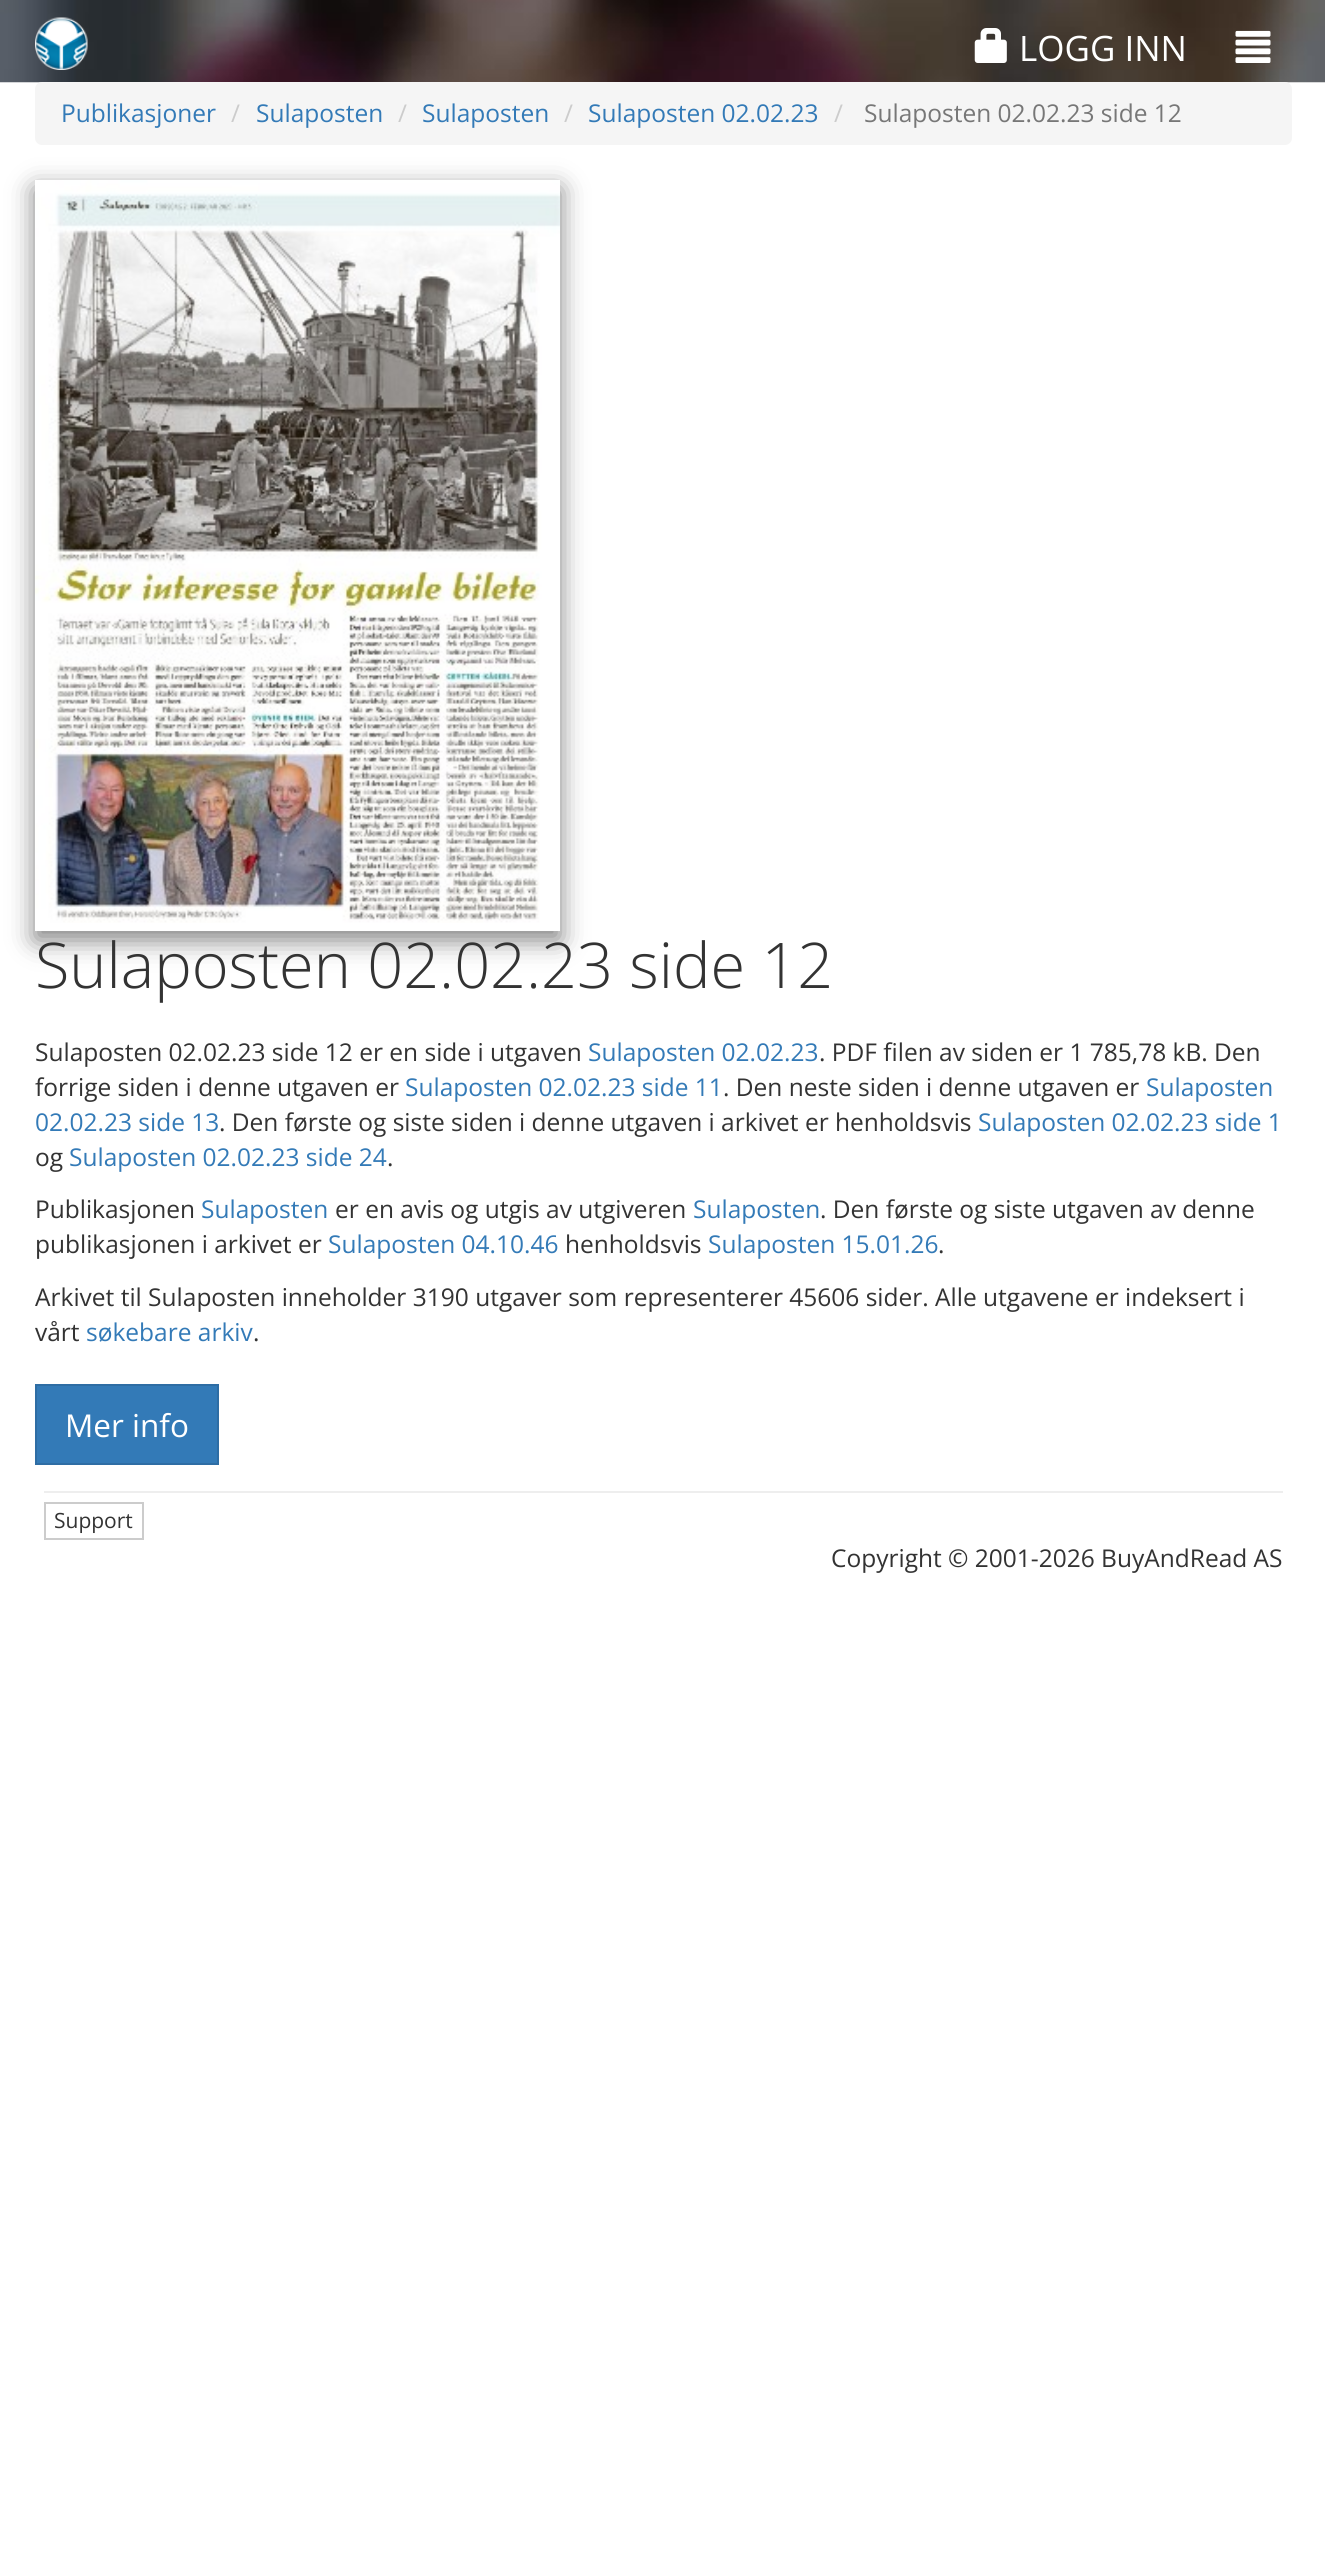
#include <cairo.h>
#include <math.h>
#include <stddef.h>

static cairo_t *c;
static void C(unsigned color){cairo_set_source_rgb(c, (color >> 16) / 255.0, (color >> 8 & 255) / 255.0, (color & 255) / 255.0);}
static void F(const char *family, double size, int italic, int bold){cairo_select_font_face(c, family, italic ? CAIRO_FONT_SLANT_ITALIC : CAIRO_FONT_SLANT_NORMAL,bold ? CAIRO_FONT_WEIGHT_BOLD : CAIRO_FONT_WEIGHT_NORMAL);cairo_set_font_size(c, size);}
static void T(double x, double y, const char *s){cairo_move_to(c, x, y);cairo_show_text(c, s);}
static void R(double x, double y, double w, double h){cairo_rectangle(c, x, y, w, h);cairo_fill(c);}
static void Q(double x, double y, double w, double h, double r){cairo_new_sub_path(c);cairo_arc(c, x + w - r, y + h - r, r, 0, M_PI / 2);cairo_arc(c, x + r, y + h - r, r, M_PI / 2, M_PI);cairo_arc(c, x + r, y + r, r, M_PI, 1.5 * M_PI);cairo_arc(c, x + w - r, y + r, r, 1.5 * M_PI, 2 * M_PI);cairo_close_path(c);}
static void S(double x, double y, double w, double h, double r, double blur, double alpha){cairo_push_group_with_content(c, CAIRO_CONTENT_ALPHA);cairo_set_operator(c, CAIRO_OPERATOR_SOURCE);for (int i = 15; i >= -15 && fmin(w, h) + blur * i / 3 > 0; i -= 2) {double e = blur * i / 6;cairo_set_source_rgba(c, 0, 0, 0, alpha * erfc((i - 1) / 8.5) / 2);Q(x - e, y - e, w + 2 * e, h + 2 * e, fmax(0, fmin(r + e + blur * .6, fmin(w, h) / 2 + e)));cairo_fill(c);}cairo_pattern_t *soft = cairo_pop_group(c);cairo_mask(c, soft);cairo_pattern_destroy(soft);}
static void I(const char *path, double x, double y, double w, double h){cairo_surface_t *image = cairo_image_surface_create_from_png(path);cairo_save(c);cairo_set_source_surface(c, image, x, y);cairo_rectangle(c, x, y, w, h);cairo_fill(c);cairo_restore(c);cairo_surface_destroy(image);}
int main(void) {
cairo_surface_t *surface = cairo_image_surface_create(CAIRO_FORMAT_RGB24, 1325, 2559);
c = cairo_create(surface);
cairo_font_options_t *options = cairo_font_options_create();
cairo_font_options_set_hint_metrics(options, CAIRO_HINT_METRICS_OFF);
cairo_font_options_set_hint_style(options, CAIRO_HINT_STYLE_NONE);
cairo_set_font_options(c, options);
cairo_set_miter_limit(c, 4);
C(0xffffff);
cairo_paint(c);
I("1.png",0,0,1325,83);
I("2.png",35,17,53,53);
I("3.png",974,28,33,35);
F("Open Sans",35,0,0);
C(0xffffff);
T(1019,61,"LOGG INN");
I("4.png",1235,30,36,33);
C(0xf5f5f5);
Q(35,82,1257,63,7);
cairo_fill(c);
F("Open Sans",24.5,0,0);
C(0x337ab7);
T(61,122,"Publikasjoner");
C(0xcccccc);
T(231,122,"/");
C(0x337ab7);
T(256,122,"Sulaposten");
C(0xcccccc);
T(398,122,"/");
C(0x337ab7);
T(422,122,"Sulaposten");
C(0xcccccc);
T(564,122,"/");
C(0x337ab7);
T(588,122,"Sulaposten 02.02.23");
C(0xcccccc);
T(834,122,"/");
C(0x777777);
T(864,122,"Sulaposten 02.02.23 side 12");
cairo_save(c);
cairo_set_fill_rule(c,CAIRO_FILL_RULE_EVEN_ODD);
cairo_new_path(c);
cairo_move_to(c,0,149);
cairo_line_to(c,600,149);
cairo_line_to(c,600,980);
cairo_line_to(c,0,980);
cairo_close_path(c);
cairo_move_to(c,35,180);
cairo_line_to(c,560,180);
cairo_line_to(c,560,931);
cairo_line_to(c,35,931);
cairo_close_path(c);
cairo_clip(c);
C(0x000000);
S(35,189,525,751,0,13,.5);
cairo_restore(c);
I("5.png",35,180,525,743);
F("Open Sans Light",63,0,0);
C(0x333333);
T(35,988,"Sulaposten 02.02.23 side 12");
F("Open Sans",24.5,0,0);
T(35,1061,"Sulaposten 02.02.23 side 12 er en side i utgaven");
C(0x337ab7);
T(588,1061,"Sulaposten 02.02.23");
C(0x333333);
T(819,1061,". PDF filen av siden er 1 785,78 kB. Den");
T(35,1096,"forrige siden i denne utgaven er");
C(0x337ab7);
T(405,1096,"Sulaposten 02.02.23 side 11");
C(0x333333);
T(723,1096,". Den neste siden i denne utgaven er");
C(0x337ab7);
T(1146,1096,"Sulaposten");
T(35,1131,"02.02.23 side 13");
C(0x333333);
T(219,1131,". Den første og siste siden i denne utgaven i arkivet er henholdsvis");
C(0x337ab7);
T(978,1131,"Sulaposten 02.02.23 side 1");
C(0x333333);
T(35,1166,"og");
C(0x337ab7);
T(69,1166,"Sulaposten 02.02.23 side 24");
C(0x333333);
T(387,1166,".");
T(35,1218,"Publikasjonen");
C(0x337ab7);
T(201,1218,"Sulaposten");
C(0x333333);
T(335,1218,"er en avis og utgis av utgiveren");
C(0x337ab7);
T(693,1218,"Sulaposten");
C(0x333333);
T(820,1218,". Den første og siste utgaven av denne");
T(35,1253,"publikasjonen i arkivet er");
C(0x337ab7);
T(328,1253,"Sulaposten 04.10.46");
C(0x333333);
T(565,1253,"henholdsvis");
C(0x337ab7);
T(708,1253,"Sulaposten 15.01.26");
C(0x333333);
T(938,1253,".");
T(35,1306,"Arkivet til Sulaposten inneholder 3190 utgaver som representerer 45606 sider. Alle utgavene er indeksert i");
T(35,1341,"vårt");
C(0x337ab7);
T(86,1341,"søkebare arkiv");
C(0x333333);
T(253,1341,".");
C(0x337ab7);
cairo_rectangle(c,36,1385,182,79);
cairo_fill_preserve(c);
C(0x2e6da4);
cairo_stroke(c);
F("Open Sans",31.5,0,0);
C(0xffffff);
T(65,1437,"Mer info");
C(0xeeeeee);
R(44,1491,1239,2);
cairo_rectangle(c,45,1503,98,36);
C(0xcccccc);
cairo_stroke(c);
F("Open Sans",21,0,0);
C(0x333333);
T(54,1528,"Support");
F("Open Sans",24.5,0,0);
T(831,1567,"Copyright © 2001-2026 BuyAndRead AS");
cairo_surface_write_to_png(surface, "o.png");
cairo_font_options_destroy(options);
cairo_destroy(c);
cairo_surface_destroy(surface);
return 0;
}
